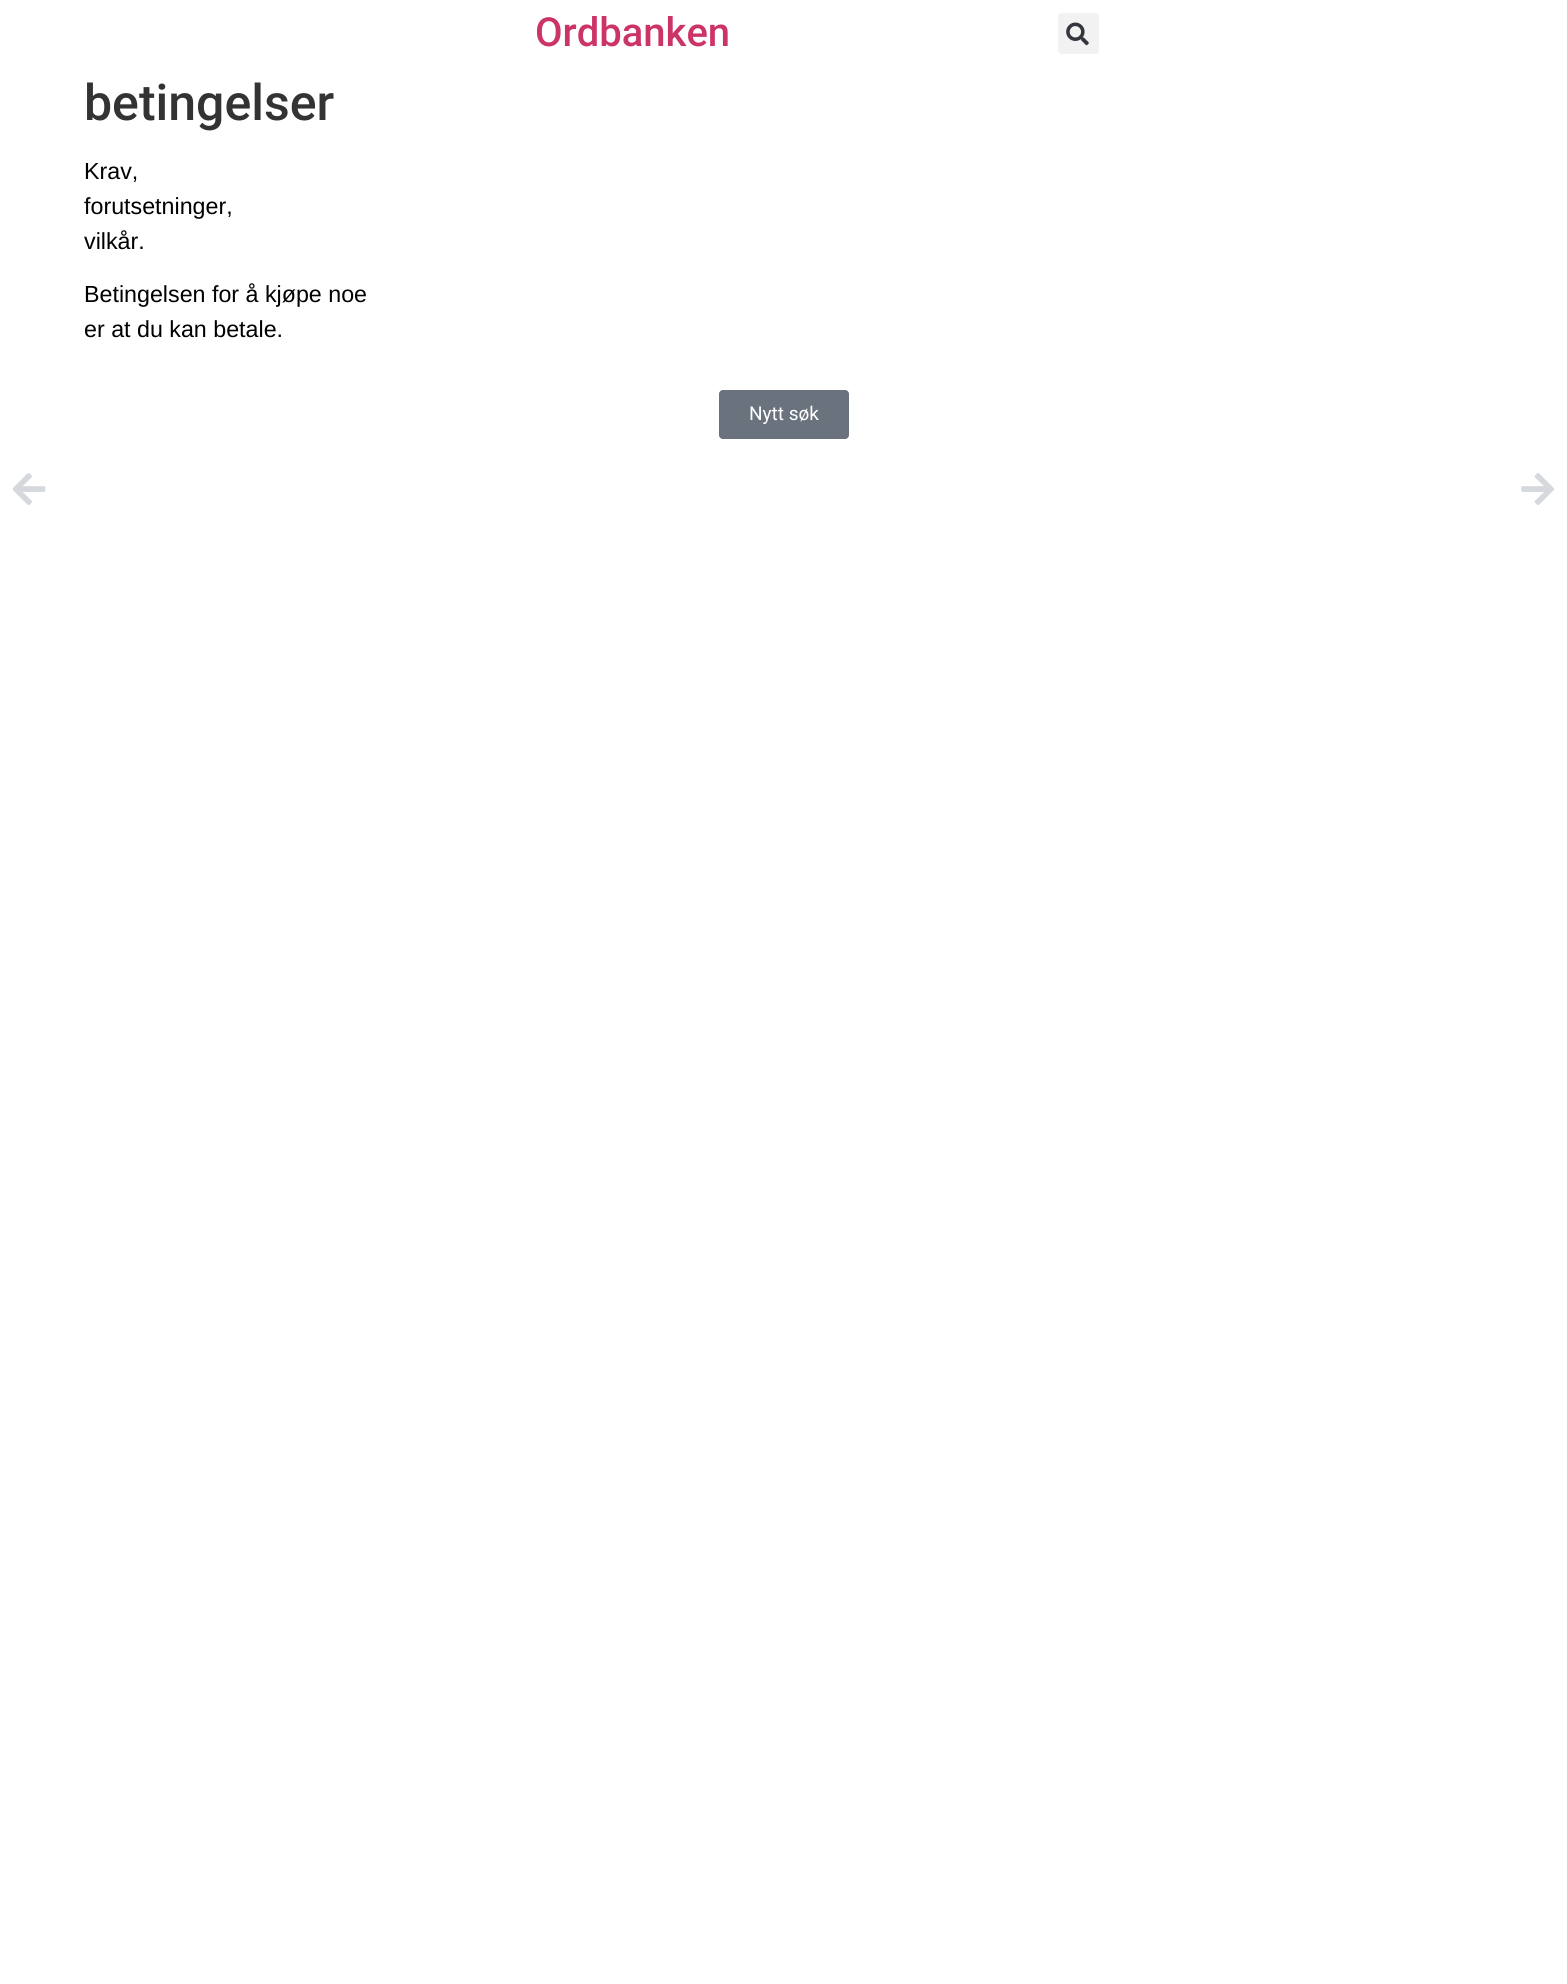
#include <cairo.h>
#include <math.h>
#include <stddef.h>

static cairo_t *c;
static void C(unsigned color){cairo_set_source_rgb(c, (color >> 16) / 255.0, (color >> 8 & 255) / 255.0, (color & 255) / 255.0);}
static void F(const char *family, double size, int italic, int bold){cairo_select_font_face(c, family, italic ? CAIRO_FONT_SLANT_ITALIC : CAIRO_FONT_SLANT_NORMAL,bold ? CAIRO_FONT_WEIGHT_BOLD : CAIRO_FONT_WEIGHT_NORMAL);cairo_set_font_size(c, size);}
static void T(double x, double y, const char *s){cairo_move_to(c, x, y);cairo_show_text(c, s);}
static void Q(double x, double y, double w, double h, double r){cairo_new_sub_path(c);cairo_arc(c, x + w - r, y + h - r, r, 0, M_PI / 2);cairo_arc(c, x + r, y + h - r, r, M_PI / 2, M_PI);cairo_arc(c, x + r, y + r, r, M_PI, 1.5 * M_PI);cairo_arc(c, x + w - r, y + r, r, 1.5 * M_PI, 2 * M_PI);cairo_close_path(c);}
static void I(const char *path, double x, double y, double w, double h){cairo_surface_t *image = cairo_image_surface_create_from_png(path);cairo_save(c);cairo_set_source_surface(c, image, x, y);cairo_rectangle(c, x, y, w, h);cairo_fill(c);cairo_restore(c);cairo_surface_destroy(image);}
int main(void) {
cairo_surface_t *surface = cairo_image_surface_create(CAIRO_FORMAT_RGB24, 1567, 1984);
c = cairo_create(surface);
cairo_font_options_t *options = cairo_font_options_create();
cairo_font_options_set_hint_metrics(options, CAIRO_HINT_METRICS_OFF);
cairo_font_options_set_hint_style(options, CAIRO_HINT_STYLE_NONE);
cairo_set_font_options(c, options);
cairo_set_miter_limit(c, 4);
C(0xffffff);
cairo_paint(c);
F("Roboto Medium",40,0,0);
C(0xcc3366);
T(535,46,"Ordbanken");
C(0xf2f2f2);
Q(1058,13,41,41,4);
cairo_fill(c);
I("1.png",1066,22,23,24);
F("Roboto Medium",50,0,0);
C(0x333333);
T(84,120,"betingelser");
F("Liberation Sans",23.25,0,0);
C(0x000000);
T(84,179,"Krav,");
T(84,214,"forutsetninger,");
T(84,249,"vilkår.");
T(84,302,"Betingelsen for å kjøpe noe");
T(84,337,"er at du kan betale.");
C(0x69727d);
Q(719,390,130,49,4);
cairo_fill(c);
F("Roboto",19,0,0);
C(0xffffff);
T(749,420,"Nytt søk");
I("2.png",13,473,33,32);
I("3.png",1521,473,33,32);
cairo_surface_write_to_png(surface, "o.png");
cairo_font_options_destroy(options);
cairo_destroy(c);
cairo_surface_destroy(surface);
return 0;
}
